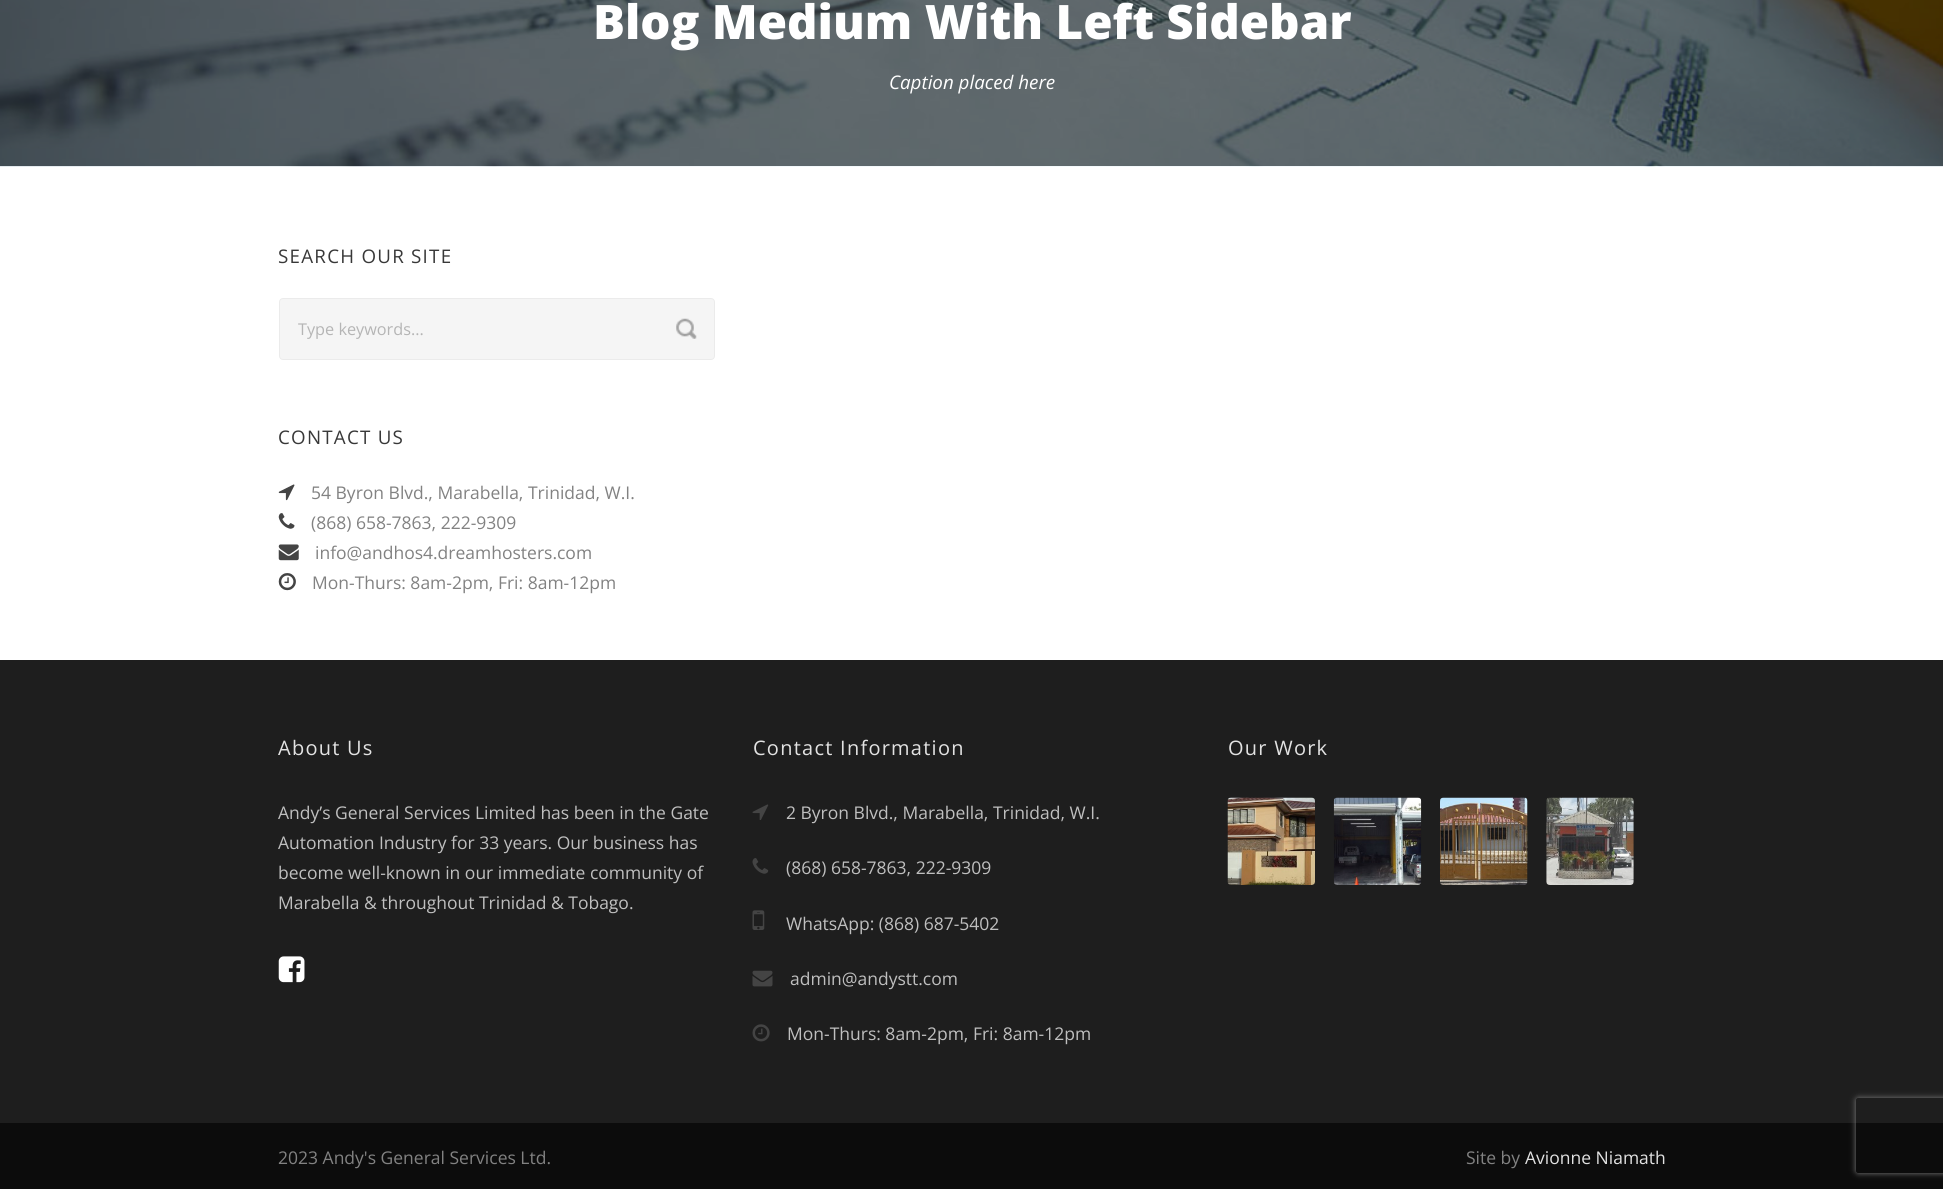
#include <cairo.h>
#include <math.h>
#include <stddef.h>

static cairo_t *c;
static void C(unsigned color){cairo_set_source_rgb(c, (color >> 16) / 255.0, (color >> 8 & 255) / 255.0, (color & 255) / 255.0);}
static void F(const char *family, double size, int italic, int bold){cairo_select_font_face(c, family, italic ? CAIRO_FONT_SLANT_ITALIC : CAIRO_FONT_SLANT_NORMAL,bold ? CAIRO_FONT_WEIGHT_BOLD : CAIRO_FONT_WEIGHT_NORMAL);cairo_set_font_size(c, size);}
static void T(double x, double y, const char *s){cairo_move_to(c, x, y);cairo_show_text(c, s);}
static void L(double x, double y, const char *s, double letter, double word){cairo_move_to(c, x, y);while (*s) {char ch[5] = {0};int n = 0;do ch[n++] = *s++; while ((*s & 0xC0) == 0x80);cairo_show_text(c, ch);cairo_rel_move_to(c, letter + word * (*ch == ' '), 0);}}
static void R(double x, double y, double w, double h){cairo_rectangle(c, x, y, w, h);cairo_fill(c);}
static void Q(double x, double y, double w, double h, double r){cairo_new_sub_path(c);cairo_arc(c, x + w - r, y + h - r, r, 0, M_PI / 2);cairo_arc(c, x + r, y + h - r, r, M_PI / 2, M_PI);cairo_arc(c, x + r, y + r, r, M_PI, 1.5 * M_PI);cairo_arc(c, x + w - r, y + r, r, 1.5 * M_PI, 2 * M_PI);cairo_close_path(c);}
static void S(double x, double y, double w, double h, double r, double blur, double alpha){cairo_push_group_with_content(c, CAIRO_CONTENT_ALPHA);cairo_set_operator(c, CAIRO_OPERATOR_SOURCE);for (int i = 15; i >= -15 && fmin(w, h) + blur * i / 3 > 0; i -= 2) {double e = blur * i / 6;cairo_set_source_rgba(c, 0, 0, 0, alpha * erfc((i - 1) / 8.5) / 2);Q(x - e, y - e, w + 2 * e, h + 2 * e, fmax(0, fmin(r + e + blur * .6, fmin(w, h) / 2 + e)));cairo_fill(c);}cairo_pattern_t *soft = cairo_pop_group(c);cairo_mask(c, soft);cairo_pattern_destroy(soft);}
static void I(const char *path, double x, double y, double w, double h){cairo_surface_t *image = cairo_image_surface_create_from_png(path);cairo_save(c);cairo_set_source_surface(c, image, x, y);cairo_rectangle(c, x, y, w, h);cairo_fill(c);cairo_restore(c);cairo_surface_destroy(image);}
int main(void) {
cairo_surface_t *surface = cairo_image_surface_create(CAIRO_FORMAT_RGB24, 1943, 1189);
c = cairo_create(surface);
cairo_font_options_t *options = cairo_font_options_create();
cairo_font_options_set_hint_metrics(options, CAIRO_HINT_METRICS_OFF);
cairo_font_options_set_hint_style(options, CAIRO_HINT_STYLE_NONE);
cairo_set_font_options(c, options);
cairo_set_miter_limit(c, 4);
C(0xffffff);
cairo_paint(c);
I("1.png",0,0,1943,167);
F("Open Sans ExtraBold",47.5,0,0);
C(0xffffff);
T(593,39,"Blog Medium With Left Sidebar");
F("Open Sans",18.75,1,0);
T(889,89,"Caption placed here");
F("Open Sans",18.75,0,0);
C(0x383838);
L(278,263,"SEARCH OUR SITE",1.25,0);
C(0xf5f5f5);
Q(279.5,298.5,435,61,3.5);
cairo_fill_preserve(c);
C(0xebebeb);
cairo_set_line_width(c,1);
cairo_stroke(c);
F("Open Sans",16.25,0,0);
C(0xb5b5b5);
T(298,335,"Type keywords...");
I("2.png",676,318,21,21);
F("Open Sans",18.75,0,0);
C(0x383838);
L(278,444,"CONTACT US",1.25,0);
I("3.png",278,484,17,17);
F("Open Sans",17.5,0,0);
C(0x828282);
T(311,499,"54 Byron Blvd., Marabella, Trinidad, W.I.");
I("4.png",278,513,17,16);
T(311,529,"(868) 658-7863, 222-9309");
I("5.png",278,544,21,17);
T(315,559,"info@andhos4.dreamhosters.com");
I("6.png",278,573,18,18);
T(312,589,"Mon-Thurs: 8am-2pm, Fri: 8am-12pm");
C(0x1e1e1e);
R(0,660,1943,463);
F("Open Sans",20,0,0);
C(0xe2e2e2);
L(278,755,"About Us",1.25,0);
F("Open Sans",17.5,0,0);
C(0xbfbfbf);
T(278,819,"Andy’s General Services Limited has been in the Gate");
T(278,849,"Automation Industry for 33 years. Our business has");
T(278,879,"become well-known in our immediate community of");
T(278,909,"Marabella & throughout Trinidad & Tobago.");
I("7.png",278,956,27,27);
F("Open Sans",20,0,0);
C(0xe2e2e2);
L(753,755,"Contact Information",1.25,0);
I("8.png",752,804,17,16);
F("Open Sans",17.5,0,0);
C(0xbfbfbf);
T(786,819,"2 Byron Blvd., Marabella, Trinidad, W.I.");
I("9.png",752,858,17,16);
T(786,874,"(868) 658-7863, 222-9309");
I("10.png",752,910,13,20);
T(786,930,"WhatsApp: (868) 687-5402");
I("11.png",752,970,21,17);
T(790,985,"admin@andystt.com");
I("12.png",752,1024,18,18);
T(787,1040,"Mon-Thurs: 8am-2pm, Fri: 8am-12pm");
F("Open Sans",20,0,0);
C(0xe2e2e2);
L(1228,755,"Our Work",1.25,0);
I("13.png",1227,797,88,88);
I("14.png",1333,797,89,88);
I("15.png",1440,797,88,88);
I("16.png",1546,797,88,88);
C(0x0c0c0c);
R(0,1123,1943,66);
F("Open Sans",17.5,0,0);
C(0x828282);
T(278,1164,"2023 Andy's General Services Ltd.");
T(1466,1164,"Site by");
C(0xe2e2e2);
T(1525,1164,"Avionne Niamath");
cairo_save(c);
cairo_set_fill_rule(c,CAIRO_FILL_RULE_EVEN_ODD);
cairo_new_path(c);
cairo_move_to(c,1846,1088);
cairo_line_to(c,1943,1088);
cairo_line_to(c,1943,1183);
cairo_line_to(c,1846,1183);
cairo_close_path(c);
cairo_move_to(c,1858.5,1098);
cairo_line_to(c,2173.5,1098);
cairo_curve_to(c,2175,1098,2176,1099,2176,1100.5);
cairo_line_to(c,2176,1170.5);
cairo_curve_to(c,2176,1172,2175,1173,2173.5,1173);
cairo_line_to(c,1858.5,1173);
cairo_curve_to(c,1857,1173,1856,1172,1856,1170.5);
cairo_line_to(c,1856,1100.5);
cairo_curve_to(c,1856,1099,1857,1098,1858.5,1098);
cairo_close_path(c);
cairo_clip(c);
C(0x808080);
S(1856,1098,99,75,2.5,3,1);
cairo_restore(c);
cairo_surface_write_to_png(surface, "o.png");
cairo_font_options_destroy(options);
cairo_destroy(c);
cairo_surface_destroy(surface);
return 0;
}
